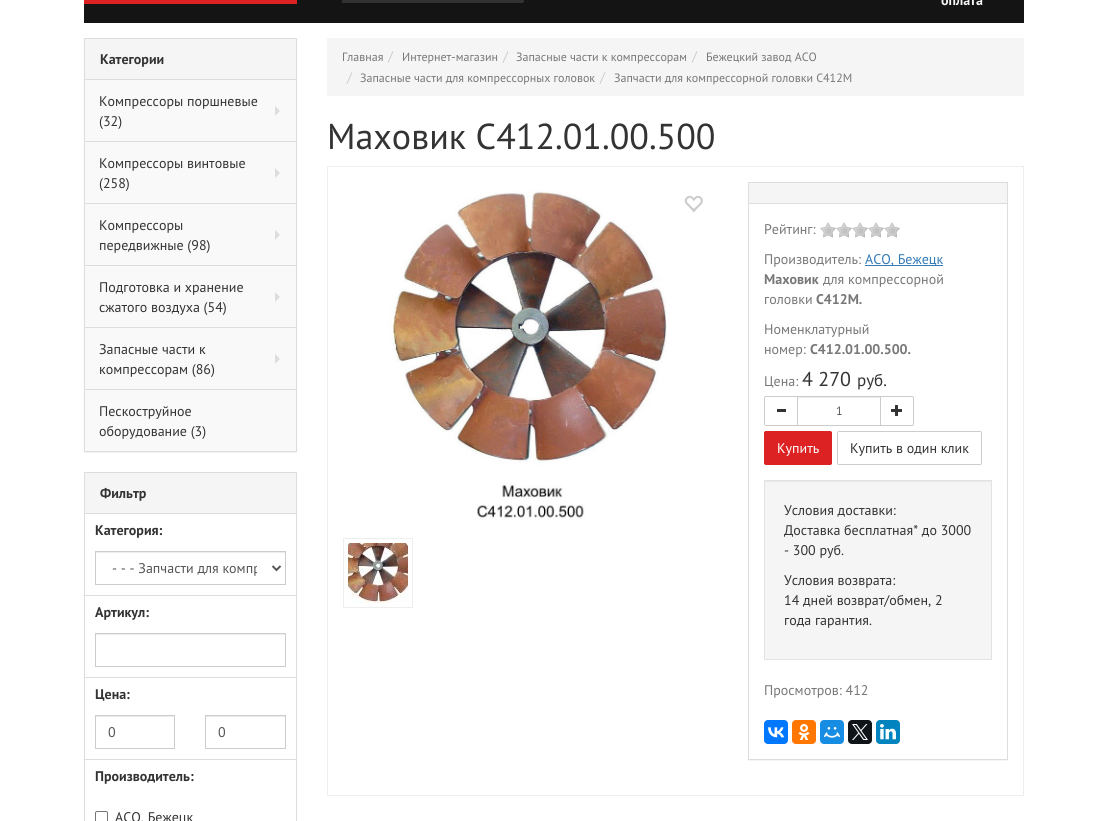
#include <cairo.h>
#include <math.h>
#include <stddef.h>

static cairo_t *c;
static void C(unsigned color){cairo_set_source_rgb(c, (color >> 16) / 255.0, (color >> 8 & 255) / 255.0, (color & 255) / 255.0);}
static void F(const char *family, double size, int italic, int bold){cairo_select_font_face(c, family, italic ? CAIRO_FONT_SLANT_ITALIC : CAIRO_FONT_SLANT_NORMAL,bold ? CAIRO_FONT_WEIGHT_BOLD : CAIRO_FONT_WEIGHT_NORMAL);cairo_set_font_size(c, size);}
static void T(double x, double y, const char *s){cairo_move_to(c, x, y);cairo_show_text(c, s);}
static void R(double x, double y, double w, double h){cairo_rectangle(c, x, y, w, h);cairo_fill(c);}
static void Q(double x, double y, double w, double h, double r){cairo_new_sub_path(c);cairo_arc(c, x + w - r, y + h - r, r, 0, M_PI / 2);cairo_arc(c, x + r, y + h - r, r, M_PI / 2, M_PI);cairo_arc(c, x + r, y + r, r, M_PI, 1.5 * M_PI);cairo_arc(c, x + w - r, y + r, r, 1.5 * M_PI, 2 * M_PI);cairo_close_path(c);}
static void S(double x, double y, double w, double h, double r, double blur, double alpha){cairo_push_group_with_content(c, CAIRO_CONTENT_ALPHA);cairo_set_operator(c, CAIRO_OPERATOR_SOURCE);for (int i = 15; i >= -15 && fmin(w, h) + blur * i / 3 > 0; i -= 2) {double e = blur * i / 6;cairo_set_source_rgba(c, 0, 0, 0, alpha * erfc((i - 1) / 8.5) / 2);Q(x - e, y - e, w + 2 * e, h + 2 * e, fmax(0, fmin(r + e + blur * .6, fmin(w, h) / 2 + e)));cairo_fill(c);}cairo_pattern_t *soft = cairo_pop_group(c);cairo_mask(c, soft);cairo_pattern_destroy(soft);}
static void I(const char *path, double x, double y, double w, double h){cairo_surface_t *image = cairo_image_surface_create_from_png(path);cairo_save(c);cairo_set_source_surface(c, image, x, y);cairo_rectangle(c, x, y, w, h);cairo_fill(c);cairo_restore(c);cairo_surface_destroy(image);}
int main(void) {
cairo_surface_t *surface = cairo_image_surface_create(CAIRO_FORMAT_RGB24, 1108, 821);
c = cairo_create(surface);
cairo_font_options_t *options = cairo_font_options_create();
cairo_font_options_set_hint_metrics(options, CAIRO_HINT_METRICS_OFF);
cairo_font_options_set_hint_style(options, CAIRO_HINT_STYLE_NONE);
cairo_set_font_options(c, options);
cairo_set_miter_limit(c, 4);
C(0xffffff);
cairo_paint(c);
C(0x141414);
R(84,0,940,23);
C(0xdc2222);
R(84,0,213,4);
C(0x313232);
R(342,0,132,3);
cairo_new_path(c);
cairo_move_to(c,473,-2);
cairo_line_to(c,522,-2);
cairo_curve_to(c,523,-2,524,-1,524,0);
cairo_line_to(c,524,1);
cairo_curve_to(c,524,2,523,3,522,3);
cairo_line_to(c,473,3);
cairo_close_path(c);
cairo_fill(c);
R(523,0,1,2);
R(522,2,1,1);
F("PT Sans",14,0,1);
C(0xf5f5f5);
T(941,5,"оплата");
C(0x000000);
S(84,39,213,414,0,.5,.05);
cairo_rectangle(c,84.5,38.5,212,413);
C(0xdddddd);
cairo_set_line_width(c,1);
cairo_stroke(c);
C(0xf5f5f5);
R(85,40,211,39);
C(0xdddddd);
R(85,79,211,1);
C(0x333333);
T(100,64,"Категории");
C(0xf9f9f9);
R(85,80,211,61);
C(0xdddddd);
R(85,141,211,1);
F("PT Sans",14,0,0);
C(0x333333);
T(99,106,"Компрессоры поршневые");
C(0xdddddd);
cairo_new_path(c);
cairo_move_to(c,275,116);
cairo_line_to(c,275,106);
cairo_line_to(c,280,111);
cairo_close_path(c);
cairo_fill(c);
C(0x333333);
T(99,126,"(32)");
C(0xf9f9f9);
R(85,142,211,61);
C(0xdddddd);
R(85,203,211,1);
C(0x333333);
T(99,168,"Компрессоры винтовые");
C(0xdddddd);
cairo_new_path(c);
cairo_move_to(c,275,178);
cairo_line_to(c,275,168);
cairo_line_to(c,280,173);
cairo_close_path(c);
cairo_fill(c);
C(0x333333);
T(99,188,"(258)");
C(0xf9f9f9);
R(85,204,211,61);
C(0xdddddd);
R(85,265,211,1);
C(0x333333);
T(99,230,"Компрессоры");
C(0xdddddd);
cairo_new_path(c);
cairo_move_to(c,275,240);
cairo_line_to(c,275,230);
cairo_line_to(c,280,235);
cairo_close_path(c);
cairo_fill(c);
C(0x333333);
T(99,250,"передвижные (98)");
C(0xf9f9f9);
R(85,266,211,61);
C(0xdddddd);
R(85,327,211,1);
C(0x333333);
T(99,292,"Подготовка и хранение");
C(0xdddddd);
cairo_new_path(c);
cairo_move_to(c,275,302);
cairo_line_to(c,275,292);
cairo_line_to(c,280,297);
cairo_close_path(c);
cairo_fill(c);
C(0x333333);
T(99,312,"сжатого воздуха (54)");
C(0xf9f9f9);
R(85,328,211,61);
C(0xdddddd);
R(85,389,211,1);
C(0x333333);
T(99,354,"Запасные части к");
C(0xdddddd);
cairo_new_path(c);
cairo_move_to(c,275,364);
cairo_line_to(c,275,354);
cairo_line_to(c,280,359);
cairo_close_path(c);
cairo_fill(c);
C(0x333333);
T(99,374,"компрессорам (86)");
C(0xf9f9f9);
R(85,390,211,61);
C(0x333333);
T(99,416,"Пескоструйное");
T(99,436,"оборудование (3)");
cairo_rectangle(c,84.5,472.5,212,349);
C(0xdddddd);
cairo_stroke(c);
C(0xf5f5f5);
R(85,473,211,40);
F("PT Sans",14,0,1);
C(0x333333);
T(100,498,"Фильтр");
C(0xdddddd);
R(85,513,211,1);
C(0x333333);
T(95,535,"Категория:");
C(0xececec);
R(96,552,189,1);
cairo_rectangle(c,95.5,551.5,190,33);
C(0xcccccc);
cairo_stroke(c);
cairo_new_path(c);
cairo_move_to(c,272.5,566);
cairo_line_to(c,276.5,570);
cairo_line_to(c,280.5,566);
C(0x555555);
cairo_set_line_width(c,2);
cairo_stroke(c);
cairo_save(c);
cairo_rectangle(c,112,558,145,20);
cairo_clip(c);
F("PT Sans",14,0,0);
T(112,573,"- - - Запчасти для компр");
cairo_restore(c);
C(0xdddddd);
R(85,595,211,1);
C(0x333333);
T(95,617,"Артикул:");
C(0xececec);
R(96,634,189,1);
cairo_rectangle(c,95.5,633.5,190,33);
C(0xcccccc);
cairo_set_line_width(c,1);
cairo_stroke(c);
C(0xdddddd);
R(85,677,211,1);
C(0x333333);
T(95,699,"Цена:");
C(0xececec);
R(96,716,78,1);
cairo_rectangle(c,95.5,715.5,79,33);
C(0xcccccc);
cairo_stroke(c);
F("PT Sans",14,0,0);
C(0x555555);
T(108,737,"0");
C(0xececec);
R(206,716,79,1);
cairo_rectangle(c,205.5,715.5,80,33);
C(0xcccccc);
cairo_stroke(c);
C(0x555555);
T(218,737,"0");
C(0xdddddd);
R(85,759,211,1);
F("PT Sans",14,0,1);
C(0x333333);
T(95,781,"Производитель:");
Q(95.5,811.5,12,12,1.5);
C(0x767676);
cairo_stroke(c);
F("PT Sans",14,0,0);
C(0x333333);
T(115,822,"АСО, Бежецк");
C(0xf5f5f5);
R(327,38,697,58);
F("PT Sans",12,0,0);
C(0x777777);
T(342,61,"Главная");
F("PT Sans",14,0,0);
C(0xcccccc);
T(388,61,"/");
F("PT Sans",12,0,0);
C(0x777777);
T(402,61,"Интернет-магазин");
F("PT Sans",14,0,0);
C(0xcccccc);
T(503,61,"/");
F("PT Sans",12,0,0);
C(0x777777);
T(516,61,"Запасные части к компрессорам");
F("PT Sans",14,0,0);
C(0xcccccc);
T(692,61,"/");
F("PT Sans",12,0,0);
C(0x777777);
T(706,61,"Бежецкий завод АСО");
F("PT Sans",14,0,0);
C(0xcccccc);
T(347,82,"/");
F("PT Sans",12,0,0);
C(0x777777);
T(360,82,"Запасные части для компрессорных головок");
F("PT Sans",14,0,0);
C(0xcccccc);
T(600,82,"/");
F("PT Sans",12,0,0);
C(0x777777);
T(614,82,"Запчасти для компрессорной головки С412М");
F("PT Sans",36,0,0);
C(0x333333);
T(327,149,"Маховик С412.01.00.500");
cairo_rectangle(c,327.5,166.5,696,629);
C(0xeeeeee);
cairo_stroke(c);
I("1.png",389,190,278,330);
I("2.png",684,195,19,18);
cairo_rectangle(c,343.5,538.5,69,69);
cairo_stroke(c);
I("3.png",348,543,60,60);
cairo_save(c);
cairo_rectangle(c,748,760,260,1);
cairo_clip(c);
C(0x000000);
S(748,183,260,578,0,.5,.05);
cairo_restore(c);
cairo_rectangle(c,748.5,182.5,259,577);
C(0xdddddd);
cairo_stroke(c);
C(0xf5f5f5);
R(749,183,258,20);
C(0xdddddd);
R(749,203,258,1);
F("PT Sans",14,0,0);
C(0x777777);
T(764,234,"Рейтинг:");
I("4.png",820,222,16,16);
I("4.png",836,222,16,16);
I("4.png",852,222,16,16);
I("4.png",868,222,16,16);
I("4.png",884,222,16,16);
T(764,264,"Производитель:");
C(0x337ab7);
R(865,265,78,1);
T(865,264,"АСО, Бежецк");
F("PT Sans",14,0,1);
C(0x777777);
T(764,284,"Маховик");
F("PT Sans",14,0,0);
T(823,284,"для компрессорной");
T(764,304,"головки");
F("PT Sans",14,0,1);
T(816,304,"С412М.");
F("PT Sans",14,0,0);
T(764,334,"Номенклатурный");
T(764,354,"номер:");
F("PT Sans",14,0,1);
T(810,354,"С412.01.00.500.");
F("PT Sans",14,0,0);
T(764,386,"Цена:");
F("PT Sans",20,0,0);
C(0x333333);
T(802,386,"4 270");
F("PT Sans",17,0,0);
T(857,386,"руб.");
cairo_new_path(c);
cairo_move_to(c,766,396.5);
cairo_line_to(c,797.5,396.5);
cairo_line_to(c,797.5,425.5);
cairo_line_to(c,766,425.5);
cairo_curve_to(c,765,425.5,764.5,425,764.5,424);
cairo_line_to(c,764.5,398);
cairo_curve_to(c,764.5,397,765,396.5,766,396.5);
cairo_close_path(c);
C(0xcccccc);
cairo_stroke(c);
C(0x333333);
R(777,409,9,3);
C(0xececec);
R(798,397,82,1);
cairo_rectangle(c,797.5,396.5,83,29);
C(0xcccccc);
cairo_stroke(c);
F("PT Sans",12,0,0);
C(0x555555);
T(836,415,"1");
C(0xffffff);
cairo_new_path(c);
cairo_move_to(c,880.5,396.5);
cairo_line_to(c,912,396.5);
cairo_curve_to(c,913,396.5,913.5,397,913.5,398);
cairo_line_to(c,913.5,424);
cairo_curve_to(c,913.5,425,913,425.5,912,425.5);
cairo_line_to(c,880.5,425.5);
cairo_close_path(c);
cairo_fill_preserve(c);
C(0xcccccc);
cairo_stroke(c);
I("5.png",891,405,11,11);
C(0xdc2222);
Q(764.5,431.5,67,33,1.5);
cairo_fill_preserve(c);
cairo_stroke(c);
F("PT Sans",14,0,0);
C(0xffffff);
T(777,453,"Купить");
Q(837.5,431.5,144,33,1.5);
C(0xcccccc);
cairo_stroke(c);
C(0x333333);
T(850,453,"Купить в один клик");
C(0xf5f5f5);
R(765,482,226,177);
C(0xe9e9e9);
R(765,481,226,1);
cairo_rectangle(c,764.5,480.5,227,179);
C(0xe3e3e3);
cairo_stroke(c);
C(0x333333);
T(784,515,"Условия доставки:");
T(784,535,"Доставка бесплатная* до 3000");
T(784,555,"- 300 руб.");
T(784,585,"Условия возврата:");
T(784,605,"14 дней возврат/обмен, 2");
T(784,625,"года гарантия.");
C(0x777777);
T(764,695,"Просмотров: 412");
C(0xf9f9f9);
R(764,720,24,24);
C(0x0077ff);
Q(764,720,24,24,4);
cairo_fill(c);
I("6.png",768,727,16,11);
C(0xf9f9f9);
R(792,720,24,24);
C(0xff7700);
Q(792,720,24,24,4);
cairo_fill(c);
I("7.png",798,724,12,16);
C(0xf9f9f9);
R(820,720,24,24);
C(0x168de2);
Q(820,720,24,24,4);
cairo_fill(c);
I("8.png",824,727,16,11);
C(0xf9f9f9);
R(848,720,24,24);
C(0x0f1419);
Q(848,720,24,24,4);
cairo_fill(c);
I("9.png",852,724,16,16);
C(0xf9f9f9);
R(876,720,24,24);
C(0x0083be);
Q(876,720,24,24,4);
cairo_fill(c);
I("10.png",880,724,16,16);
cairo_surface_write_to_png(surface, "o.png");
cairo_font_options_destroy(options);
cairo_destroy(c);
cairo_surface_destroy(surface);
return 0;
}
